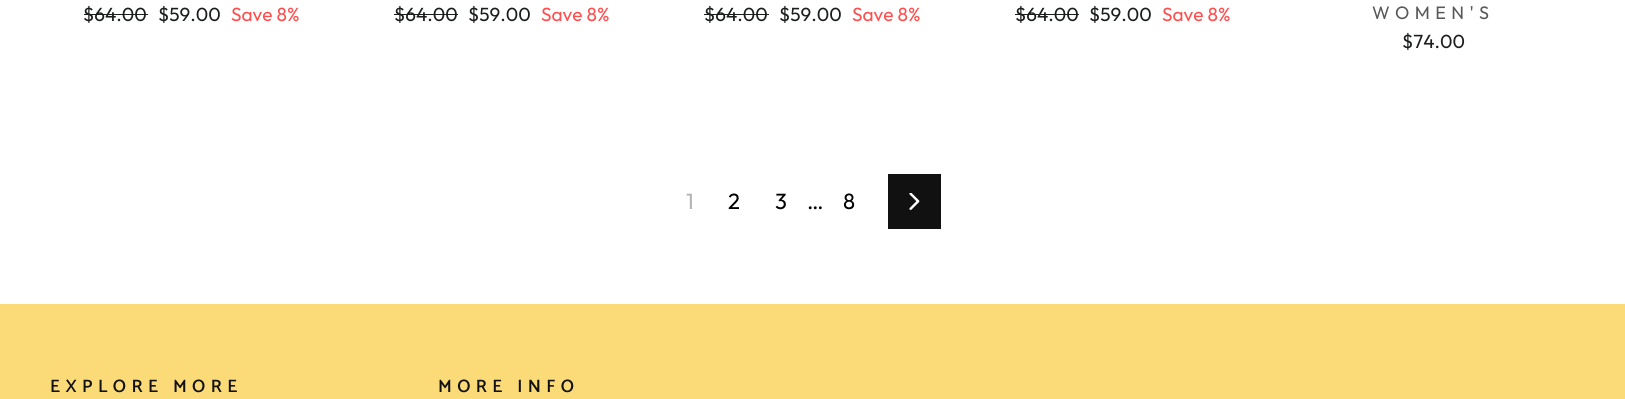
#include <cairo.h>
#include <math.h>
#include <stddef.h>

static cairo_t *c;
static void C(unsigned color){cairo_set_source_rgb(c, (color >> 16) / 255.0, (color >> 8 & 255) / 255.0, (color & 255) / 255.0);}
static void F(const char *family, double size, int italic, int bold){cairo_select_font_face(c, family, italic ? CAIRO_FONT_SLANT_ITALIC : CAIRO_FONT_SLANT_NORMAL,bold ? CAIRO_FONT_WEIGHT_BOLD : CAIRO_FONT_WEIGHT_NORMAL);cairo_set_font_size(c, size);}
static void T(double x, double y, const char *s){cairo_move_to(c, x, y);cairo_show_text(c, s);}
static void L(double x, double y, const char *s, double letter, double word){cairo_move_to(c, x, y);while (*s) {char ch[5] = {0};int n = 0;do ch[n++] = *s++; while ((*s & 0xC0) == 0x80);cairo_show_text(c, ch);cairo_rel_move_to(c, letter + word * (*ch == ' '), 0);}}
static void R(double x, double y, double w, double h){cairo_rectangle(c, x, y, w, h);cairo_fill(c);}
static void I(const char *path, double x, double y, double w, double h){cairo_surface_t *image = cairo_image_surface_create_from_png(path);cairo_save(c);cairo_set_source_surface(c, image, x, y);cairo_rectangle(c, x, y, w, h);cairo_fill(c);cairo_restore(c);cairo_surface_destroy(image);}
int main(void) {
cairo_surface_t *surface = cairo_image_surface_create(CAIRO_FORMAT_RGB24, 1625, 399);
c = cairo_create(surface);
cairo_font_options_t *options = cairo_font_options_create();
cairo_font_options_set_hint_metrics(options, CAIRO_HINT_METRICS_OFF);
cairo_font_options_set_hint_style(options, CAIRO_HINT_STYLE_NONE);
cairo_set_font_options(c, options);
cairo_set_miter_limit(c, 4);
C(0xffffff);
cairo_paint(c);
F("Outfit",19,0,0);
C(0x1c1d1d);
T(83,21,"$64.00");
R(84,14,64,1);
T(158,21,"$59.00");
C(0xff4e4e);
T(231,21,"Save 8%");
C(0x1c1d1d);
T(394,21,"$64.00");
R(394,14,64,1);
T(468,21,"$59.00");
C(0xff4e4e);
T(541,21,"Save 8%");
C(0x1c1d1d);
T(704,21,"$64.00");
R(704,14,65,1);
T(779,21,"$59.00");
C(0xff4e4e);
T(852,21,"Save 8%");
C(0x1c1d1d);
T(1015,21,"$64.00");
R(1015,14,64,1);
T(1089,21,"$59.00");
C(0xff4e4e);
T(1162,21,"Save 8%");
F("Outfit",18,0,0);
C(0x595959);
L(1372,19,"WOMEN'S",5.4,0);
F("Outfit",19,0,0);
C(0x1c1d1d);
T(1402,48,"$74.00");
F("Outfit",22,0,0);
C(0xb3b3b3);
T(686,209,"1");
C(0x000000);
T(728,209,"2");
T(775,209,"3");
T(807,209,"…");
T(843,209,"8");
C(0x111111);
R(888,174,53,55);
I("1.png",909,193,11,17);
C(0xfadb78);
R(0,304,1625,95);
F("Catamaran SemiBold",18,0,0);
C(0x111111);
L(50,392,"EXPLORE MORE",5.4,0);
L(438,392,"MORE INFO",5.4,0);
cairo_surface_write_to_png(surface, "o.png");
cairo_font_options_destroy(options);
cairo_destroy(c);
cairo_surface_destroy(surface);
return 0;
}
